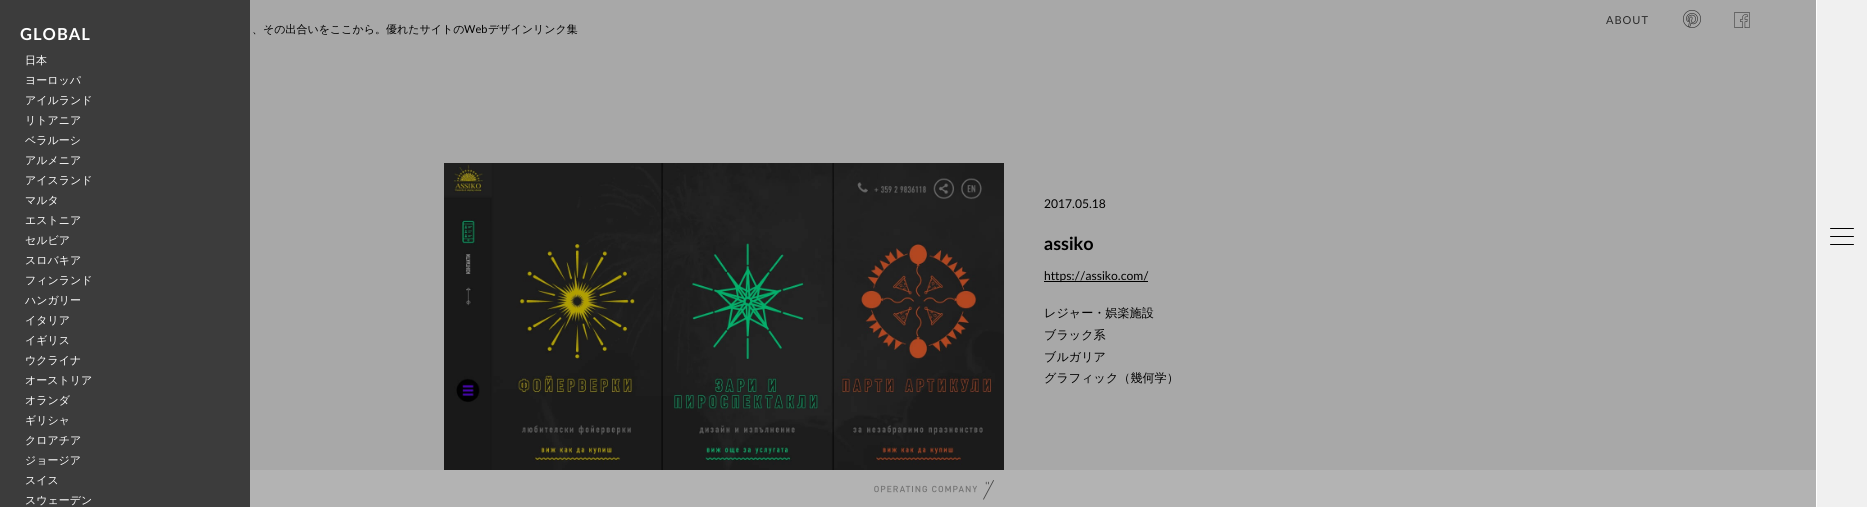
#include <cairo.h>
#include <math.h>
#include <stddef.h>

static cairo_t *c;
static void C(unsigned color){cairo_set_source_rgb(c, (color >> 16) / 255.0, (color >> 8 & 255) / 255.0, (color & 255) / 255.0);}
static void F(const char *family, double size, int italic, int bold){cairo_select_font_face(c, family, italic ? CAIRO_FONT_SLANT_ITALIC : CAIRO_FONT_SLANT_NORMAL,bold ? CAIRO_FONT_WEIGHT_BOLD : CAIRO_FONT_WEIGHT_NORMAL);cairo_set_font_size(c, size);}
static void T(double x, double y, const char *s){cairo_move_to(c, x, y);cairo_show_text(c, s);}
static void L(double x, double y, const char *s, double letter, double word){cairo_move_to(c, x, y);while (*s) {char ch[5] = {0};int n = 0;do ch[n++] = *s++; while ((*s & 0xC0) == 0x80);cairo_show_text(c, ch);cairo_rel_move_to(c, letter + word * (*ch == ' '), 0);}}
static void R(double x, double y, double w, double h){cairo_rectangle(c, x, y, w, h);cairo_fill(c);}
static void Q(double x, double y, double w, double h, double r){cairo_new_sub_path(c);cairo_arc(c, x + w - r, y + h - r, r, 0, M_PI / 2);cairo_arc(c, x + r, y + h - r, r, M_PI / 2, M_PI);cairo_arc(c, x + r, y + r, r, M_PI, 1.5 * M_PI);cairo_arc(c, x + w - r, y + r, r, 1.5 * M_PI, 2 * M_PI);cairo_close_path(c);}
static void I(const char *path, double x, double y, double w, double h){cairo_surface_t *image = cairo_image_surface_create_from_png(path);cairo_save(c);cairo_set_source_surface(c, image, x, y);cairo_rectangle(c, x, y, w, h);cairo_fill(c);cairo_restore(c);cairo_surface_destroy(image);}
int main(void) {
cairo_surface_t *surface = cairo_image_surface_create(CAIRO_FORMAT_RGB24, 1867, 507);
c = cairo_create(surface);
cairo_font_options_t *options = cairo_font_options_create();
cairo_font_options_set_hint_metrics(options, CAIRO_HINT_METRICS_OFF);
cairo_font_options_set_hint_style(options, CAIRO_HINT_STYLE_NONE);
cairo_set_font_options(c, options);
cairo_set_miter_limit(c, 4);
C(0xa8a8a8);
cairo_paint(c);
C(0x3c3c3c);
R(0,0,250,507);
F("Lato",16.5,0,1);
C(0xffffff);
L(20,40,"GLOBAL",1,0);
F("WenQuanYi Zen Hei Medium",11,0,0);
T(25,64,"日本");
T(25,84,"ヨーロッパ");
T(25,104,"アイルランド");
T(25,124,"リトアニア");
T(25,144,"ベラルーシ");
T(25,164,"アルメニア");
T(25,184,"アイスランド");
T(25,204,"マルタ");
T(25,224,"エストニア");
T(25,244,"セルビア");
T(25,264,"スロバキア");
T(25,284,"フィンランド");
T(25,304,"ハンガリー");
T(25,324,"イタリア");
T(25,344,"イギリス");
T(25,364,"ウクライナ");
T(25,384,"オーストリア");
T(25,404,"オランダ");
T(25,424,"ギリシャ");
T(25,444,"クロアチア");
T(25,464,"ジョージア");
T(25,484,"スイス");
T(25,504,"スウェーデン");
F("Lato",11,0,0);
C(0x2b2b2b);
L(1606,24,"ABOUT",1,0);
I("1.png",1683,10,18,18);
I("2.png",1734,12,16,16);
F("WenQuanYi Zen Hei Medium",11,0,0);
C(0x000000);
T(252,33,"、その出合いをここから。優れたサイトの");
F("Lato",11,0,0);
T(464,33,"Web");
F("WenQuanYi Zen Hei Medium",11,0,0);
T(488,33,"デザインリンク集");
C(0xf0f0f0);
R(1817,0,50,507);
C(0xffffff);
R(1816,0,1,507);
C(0x000000);
Q(1830,228,24,1,.5);
cairo_fill(c);
Q(1830,236,24,1,.5);
cairo_fill(c);
Q(1830,244,24,1,.5);
cairo_fill(c);
I("3.png",444,163,560,307);
F("Lato",12.1,0,0);
T(1044,208,"2017.05.18");
F("Lato",18,0,1);
T(1044,250,"assiko");
R(1044,281,104,1);
F("Lato",12.1,0,0);
T(1044,280,"https://assiko.com/");
F("WenQuanYi Zen Hei Medium",12.1,0,0);
T(1044,317,"レジャー・娯楽施設");
T(1044,339,"ブラック系");
T(1044,361,"ブルガリア");
T(1044,382,"グラフィック（幾何学）");
C(0xb3b3b3);
R(250,470,1566,37);
I("4.png",874,480,120,20);
cairo_surface_write_to_png(surface, "o.png");
cairo_font_options_destroy(options);
cairo_destroy(c);
cairo_surface_destroy(surface);
return 0;
}
